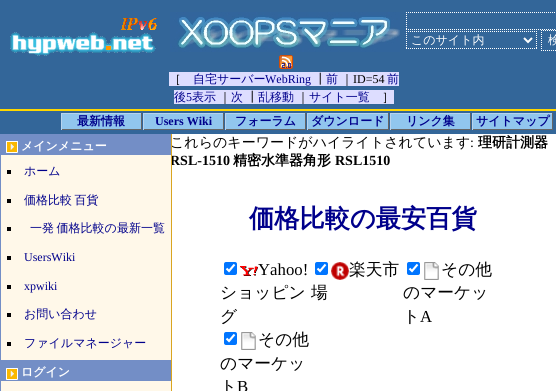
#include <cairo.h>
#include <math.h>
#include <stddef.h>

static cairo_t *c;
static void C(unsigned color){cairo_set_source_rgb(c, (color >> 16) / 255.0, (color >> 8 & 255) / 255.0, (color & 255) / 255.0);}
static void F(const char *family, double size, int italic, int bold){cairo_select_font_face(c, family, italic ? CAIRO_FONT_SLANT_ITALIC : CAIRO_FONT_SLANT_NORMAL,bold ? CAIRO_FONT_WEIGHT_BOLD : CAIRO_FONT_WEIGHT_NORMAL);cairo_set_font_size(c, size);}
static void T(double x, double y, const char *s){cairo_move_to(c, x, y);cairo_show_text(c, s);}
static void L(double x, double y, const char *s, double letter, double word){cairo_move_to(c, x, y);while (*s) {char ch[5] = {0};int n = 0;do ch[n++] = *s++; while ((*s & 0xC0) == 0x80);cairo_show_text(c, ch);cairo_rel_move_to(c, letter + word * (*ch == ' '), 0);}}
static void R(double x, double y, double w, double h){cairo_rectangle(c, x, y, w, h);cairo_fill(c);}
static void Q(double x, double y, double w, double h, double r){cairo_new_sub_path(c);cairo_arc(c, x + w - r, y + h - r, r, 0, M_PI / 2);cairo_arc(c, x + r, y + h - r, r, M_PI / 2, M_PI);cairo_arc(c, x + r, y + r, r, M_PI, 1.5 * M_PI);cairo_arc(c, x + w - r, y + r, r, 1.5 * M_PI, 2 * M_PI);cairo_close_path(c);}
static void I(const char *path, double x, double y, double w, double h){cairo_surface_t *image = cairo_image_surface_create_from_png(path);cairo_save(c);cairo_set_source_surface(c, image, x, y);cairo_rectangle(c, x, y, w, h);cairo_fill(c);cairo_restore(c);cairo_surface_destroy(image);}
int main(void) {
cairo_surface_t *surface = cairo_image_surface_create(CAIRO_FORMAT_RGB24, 556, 391);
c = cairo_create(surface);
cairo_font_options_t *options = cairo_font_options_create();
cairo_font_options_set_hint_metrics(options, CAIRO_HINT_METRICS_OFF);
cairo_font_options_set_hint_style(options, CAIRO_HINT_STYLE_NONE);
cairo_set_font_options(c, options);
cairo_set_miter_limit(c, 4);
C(0xffffff);
cairo_paint(c);
C(0x336699);
R(0,0,556,134);
C(0xffd700);
R(0,109,556,2);
I("1.png",10,18,147,38);
cairo_new_path(c);
cairo_move_to(c,406,12.5);
cairo_line_to(c,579,12.5);
C(0xffffff);
cairo_set_line_width(c,1);
cairo_set_dash(c,(double[]){1,1},2,0);
cairo_stroke(c);
cairo_new_path(c);
cairo_move_to(c,406,29.5);
cairo_line_to(c,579,29.5);
cairo_stroke(c);
cairo_new_path(c);
cairo_move_to(c,406.5,12);
cairo_line_to(c,406.5,30);
cairo_stroke(c);
cairo_new_path(c);
cairo_move_to(c,406,31.5);
cairo_line_to(c,537,31.5);
cairo_stroke(c);
cairo_new_path(c);
cairo_move_to(c,536.5,31);
cairo_line_to(c,536.5,49);
cairo_stroke(c);
cairo_new_path(c);
cairo_move_to(c,406,48.5);
cairo_line_to(c,537,48.5);
cairo_stroke(c);
cairo_new_path(c);
cairo_move_to(c,406.5,31);
cairo_line_to(c,406.5,49);
cairo_stroke(c);
cairo_new_path(c);
cairo_move_to(c,524,38);
cairo_line_to(c,528,42);
cairo_line_to(c,532,38);
cairo_set_line_width(c,2);
cairo_set_dash(c,NULL,0,0);
cairo_stroke(c);
F("WenQuanYi Zen Hei Medium",12,0,0);
T(411,44,"このサイト内");
cairo_new_path(c);
cairo_move_to(c,541,30.5);
cairo_line_to(c,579,30.5);
cairo_move_to(c,541,50.5);
cairo_line_to(c,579,50.5);
cairo_move_to(c,541.5,30);
cairo_line_to(c,541.5,51);
cairo_set_line_width(c,1);
cairo_set_dash(c,(double[]){1,1},2,0);
cairo_stroke(c);
T(548,44,"検");
I("2.png",170,12,230,40);
I("3.png",279,55,14,14);
C(0xddddff);
R(169,72,230,14);
C(0x000000);
T(169,83,"［");
C(0x00008b);
T(193,83,"自宅サーバー");
F("Liberation Serif",12,0,0);
T(265,83,"WebRing");
F("WenQuanYi Zen Hei Medium",12,0,0);
C(0x000000);
T(314,83,"┃");
C(0x00008b);
T(326,83,"前");
C(0x000000);
T(341,83,"｜");
F("Liberation Serif",12,0,0);
T(353,83,"ID=54");
F("WenQuanYi Zen Hei Medium",12,0,0);
C(0x00008b);
T(387,83,"前");
C(0xddddff);
R(174,90,220,14);
C(0x00008b);
T(174,101,"後");
F("Liberation Serif",12,0,0);
T(186,101,"5");
F("WenQuanYi Zen Hei Medium",12,0,0);
T(192,101,"表示");
C(0x000000);
T(219,101,"｜");
C(0x00008b);
T(231,101,"次");
C(0x000000);
T(246,101,"┃");
C(0x00008b);
T(258,101,"乱移動");
C(0x000000);
T(297,101,"｜");
C(0x00008b);
T(309,101,"サイト一覧");
C(0x000000);
T(382,101,"］");
C(0x91c6ee);
R(62,114,79,15);
C(0xb8d4ef);
R(61,113,81,1);
C(0x666666);
R(141,113,1,17);
R(61,129,81,1);
C(0xb8d4ef);
R(61,113,1,17);
F("WenQuanYi Zen Hei",12,0,1);
C(0x00008b);
T(77,125,"最新情報");
C(0x91c6ee);
R(144,114,79,15);
C(0xb8d4ef);
R(143,113,81,1);
C(0x666666);
R(223,113,1,17);
R(143,129,81,1);
C(0xb8d4ef);
R(143,113,1,17);
F("Liberation Serif",12,0,1);
C(0x00008b);
T(155,125,"Users Wiki");
C(0x91c6ee);
R(226,114,79,15);
C(0xb8d4ef);
R(225,113,81,1);
C(0x666666);
R(305,113,1,17);
R(225,129,81,1);
C(0xb8d4ef);
R(225,113,1,17);
F("WenQuanYi Zen Hei",12,0,1);
C(0x00008b);
T(235,125,"フォーラム");
C(0x91c6ee);
R(308,114,80,15);
C(0xb8d4ef);
R(307,113,82,1);
C(0x666666);
R(388,113,1,17);
R(307,129,82,1);
C(0xb8d4ef);
R(307,113,1,17);
C(0x00008b);
T(311,125,"ダウンロード");
C(0x91c6ee);
R(391,114,79,15);
C(0xb8d4ef);
R(390,113,81,1);
C(0x666666);
R(470,113,1,17);
R(390,129,81,1);
C(0xb8d4ef);
R(390,113,1,17);
C(0x00008b);
T(406,125,"リンク集");
C(0x91c6ee);
R(473,114,79,15);
C(0xb8d4ef);
R(472,113,81,1);
C(0x666666);
R(552,113,1,17);
R(472,129,81,1);
C(0xb8d4ef);
R(472,113,1,17);
C(0x00008b);
T(476,125,"サイトマップ");
F("Liberation Serif",14,0,1);
C(0x000000);
T(170,165,"RSL-1510");
C(0xfff8e9);
R(1,155,170,236);
F("WenQuanYi Zen Hei Medium",14,0,0);
C(0x000000);
T(170,147,"これらのキーワードがハイライトされています");
C(0xdaa520);
R(171,134,1,257);
C(0x738ec6);
R(0,134,1,257);
R(1,134,170,21);
I("4.png",6,141,12,12);
F("WenQuanYi Zen Hei",12,0,1);
C(0xffffff);
T(21,150,"メインメニュー");
C(0x000000);
R(7,170,4,4);
F("WenQuanYi Zen Hei Medium",12,0,0);
C(0x00008b);
T(24,175,"ホーム");
C(0x000000);
R(7,199,4,4);
C(0x00008b);
L(24,204,"価格比較 百貨",0,-1);
C(0x000000);
R(7,227,4,4);
C(0x00008b);
L(30,232,"一発 価格比較の最新一覧",0,-1);
C(0x000000);
R(7,256,4,4);
F("Liberation Serif",12,0,0);
C(0x00008b);
T(24,261,"UsersWiki");
C(0x000000);
R(7,285,4,4);
C(0x00008b);
T(24,290,"xpwiki");
C(0x000000);
R(7,313,4,4);
F("WenQuanYi Zen Hei Medium",12,0,0);
C(0x00008b);
T(24,318,"お問い合わせ");
C(0x000000);
R(7,342,4,4);
C(0x00008b);
T(24,347,"ファイルマネージャー");
C(0x738ec6);
R(1,360,170,21);
I("4.png",6,368,12,12);
F("WenQuanYi Zen Hei",12,0,1);
C(0xffffff);
T(21,376,"ログイン");
F("Liberation Serif",14,0,0);
C(0x000000);
T(470,147,":");
F("WenQuanYi Zen Hei",14,0,1);
T(478,147,"理研計測器");
T(233,165,"精密水準器角形");
F("Liberation Serif",14,0,1);
T(335,165,"RSL1510");
F("WenQuanYi Zen Hei",25.25,0,1);
C(0x00008b);
T(249,227,"価格比較の最安百貨");
C(0x0075ff);
Q(224,262,13,13,2);
cairo_fill(c);
cairo_new_path(c);
cairo_move_to(c,226.5,268.5);
cairo_line_to(c,229,271);
cairo_line_to(c,234.5,264.5);
C(0xffffff);
cairo_set_line_width(c,2.1);
cairo_set_dash(c,NULL,0,0);
cairo_stroke(c);
I("5.png",240,266,18,10);
F("Liberation Serif",16.75,0,0);
C(0x000000);
T(258,275,"Yahoo!");
F("WenQuanYi Zen Hei Medium",16.75,0,0);
T(220,298,"ショッピン");
T(220,322,"グ");
C(0x0075ff);
Q(315,262,13,13,2);
cairo_fill(c);
cairo_new_path(c);
cairo_move_to(c,317.5,268.5);
cairo_line_to(c,320,271);
cairo_line_to(c,325.5,264.5);
C(0xffffff);
cairo_stroke(c);
I("6.png",331,262,18,18);
C(0x000000);
T(349,275,"楽天市");
T(311,298,"場");
C(0x0075ff);
Q(407,262,13,13,2);
cairo_fill(c);
cairo_new_path(c);
cairo_move_to(c,409.5,268.5);
cairo_line_to(c,412,271);
cairo_line_to(c,417.5,264.5);
C(0xffffff);
cairo_stroke(c);
I("7.png",424,262,15,18);
C(0x000000);
T(441,275,"その他");
T(403,298,"のマーケッ");
T(403,322,"ト");
F("Liberation Serif",16.75,0,0);
T(420,322,"A");
C(0x0075ff);
Q(224,332,13,13,2);
cairo_fill(c);
cairo_new_path(c);
cairo_move_to(c,226.5,338.5);
cairo_line_to(c,229,341);
cairo_line_to(c,234.5,334.5);
C(0xffffff);
cairo_stroke(c);
I("8.png",241,332,15,18);
F("WenQuanYi Zen Hei Medium",16.75,0,0);
C(0x000000);
T(258,345,"その他");
T(220,369,"のマーケッ");
T(220,392,"ト");
F("Liberation Serif",16.75,0,0);
T(237,392,"B");
cairo_surface_write_to_png(surface, "o.png");
cairo_font_options_destroy(options);
cairo_destroy(c);
cairo_surface_destroy(surface);
return 0;
}
